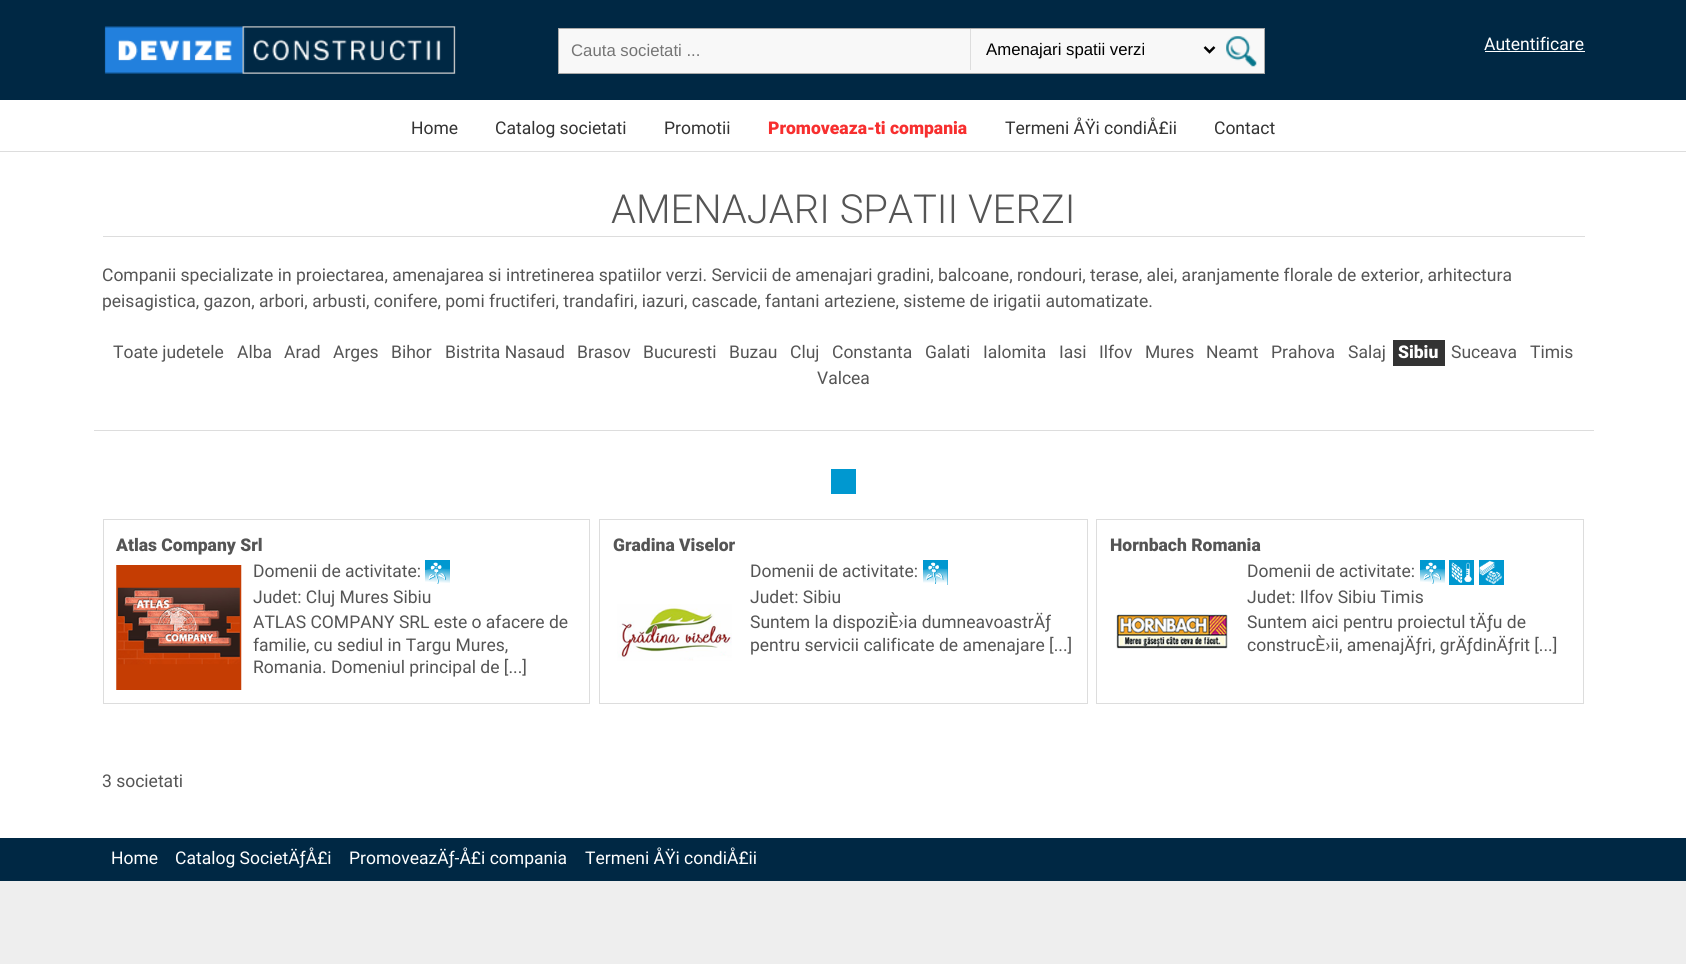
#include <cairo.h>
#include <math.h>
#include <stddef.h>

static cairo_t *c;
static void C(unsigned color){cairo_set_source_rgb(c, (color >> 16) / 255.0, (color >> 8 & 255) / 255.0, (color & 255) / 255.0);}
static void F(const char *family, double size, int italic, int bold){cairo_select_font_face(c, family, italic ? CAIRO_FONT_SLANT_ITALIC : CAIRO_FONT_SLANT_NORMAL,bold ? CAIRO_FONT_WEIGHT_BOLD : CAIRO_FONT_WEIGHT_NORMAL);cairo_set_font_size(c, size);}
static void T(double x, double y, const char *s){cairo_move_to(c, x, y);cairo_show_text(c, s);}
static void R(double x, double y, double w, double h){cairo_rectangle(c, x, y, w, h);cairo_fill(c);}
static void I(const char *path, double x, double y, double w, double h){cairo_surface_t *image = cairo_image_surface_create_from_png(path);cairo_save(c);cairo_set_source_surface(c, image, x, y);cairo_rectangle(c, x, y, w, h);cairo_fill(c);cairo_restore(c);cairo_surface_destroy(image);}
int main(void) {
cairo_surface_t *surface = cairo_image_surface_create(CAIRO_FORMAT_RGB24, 1686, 964);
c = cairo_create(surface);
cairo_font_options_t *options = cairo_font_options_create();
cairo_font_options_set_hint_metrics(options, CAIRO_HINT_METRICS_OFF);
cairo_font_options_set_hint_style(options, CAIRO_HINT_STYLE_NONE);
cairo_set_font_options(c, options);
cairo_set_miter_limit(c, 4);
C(0xeeeeee);
cairo_paint(c);
C(0xffffff);
R(0,100,1686,738);
C(0x002844);
R(0,0,1686,100);
I("1.png",104,26,352,48);
C(0xf8f8f8);
cairo_rectangle(c,558.5,28.5,706,45);
cairo_fill_preserve(c);
C(0xa9a9a9);
cairo_set_line_width(c,1);
cairo_stroke(c);
F("Liberation Sans",16.75,0,0);
C(0x757575);
T(571,56,"Cauta societati ...");
C(0xdddddd);
R(970,29,1,41);
cairo_new_path(c);
cairo_move_to(c,1204.5,47);
cairo_line_to(c,1209.5,52);
cairo_line_to(c,1214.5,47);
C(0x000000);
cairo_set_line_width(c,2.5);
cairo_stroke(c);
T(986,55,"Amenajari spatii verzi");
I("2.png",1226,36,31,31);
F("Roboto",17.5,0,0);
C(0xffffff);
T(1484,50,"Autentificare");
R(1485,51,100,1);
C(0xdddddd);
R(0,151,1686,1);
C(0x333333);
T(411,134,"Home");
T(495,134,"Catalog societati");
T(664,134,"Promotii");
F("Roboto Black",17.5,0,0);
C(0xf72f2f);
T(768,134,"Promoveaza-ti compania");
F("Roboto",17.5,0,0);
C(0x333333);
T(1005,134,"Termeni ÅŸi condiÅ£ii");
T(1214,134,"Contact");
C(0xdddddd);
R(94,430,1500,1);
R(103,236,1482,1);
F("Roboto Light",40,0,0);
C(0x555555);
T(611,223,"AMENAJARI SPATII VERZI");
F("Roboto",17.5,0,0);
T(102,281,"Companii specializate in proiectarea, amenajarea si intretinerea spatiilor verzi. Servicii de amenajari gradini, balcoane, rondouri, terase, alei, aranjamente florale de exterior, arhitectura");
T(102,307,"peisagistica, gazon, arbori, arbusti, conifere, pomi fructiferi, trandafiri, iazuri, cascade, fantani arteziene, sisteme de irigatii automatizate.");
T(113,358,"Toate judetele");
T(237,358,"Alba");
T(284,358,"Arad");
T(333,358,"Arges");
T(391,358,"Bihor");
T(445,358,"Bistrita Nasaud");
T(577,358,"Brasov");
T(643,358,"Bucuresti");
T(729,358,"Buzau");
T(790,358,"Cluj");
T(832,358,"Constanta");
T(925,358,"Galati");
T(983,358,"Ialomita");
T(1059,358,"Iasi");
T(1099,358,"Ilfov");
T(1145,358,"Mures");
T(1206,358,"Neamt");
T(1271,358,"Prahova");
T(1348,358,"Salaj");
C(0x333333);
R(1393,340,52,26);
F("Roboto Black",17.5,0,0);
C(0xffffff);
T(1398,358,"Sibiu");
F("Roboto",17.5,0,0);
C(0x555555);
T(1451,358,"Suceava");
T(1530,358,"Timis");
T(817,384,"Valcea");
C(0x0098d0);
R(831,469,25,25);
cairo_rectangle(c,103.5,519.5,486,184);
C(0xdddddd);
cairo_set_line_width(c,1);
cairo_stroke(c);
F("Roboto Black",17.5,0,0);
C(0x555555);
T(116,551,"Atlas Company Srl");
I("3.png",116,565,126,125);
F("Roboto",17.5,0,0);
T(253,577,"Domenii de activitate:");
I("4.png",425,560,25,24);
T(253,603,"Judet: Cluj Mures Sibiu");
T(253,628,"ATLAS COMPANY SRL este o afacere de");
T(253,651,"familie, cu sediul in Targu Mures,");
T(253,673,"Romania. Domeniul principal de [...]");
cairo_rectangle(c,599.5,519.5,488,184);
C(0xdddddd);
cairo_stroke(c);
F("Roboto Black",17.5,0,0);
C(0x555555);
T(613,551,"Gradina Viselor");
F("Roboto",17.5,0,0);
T(750,577,"Domenii de activitate:");
I("5.png",923,560,25,25);
T(750,603,"Judet: Sibiu");
I("6.png",617,604,115,57);
T(750,628,"Suntem la dispoziÈ›ia dumneavoastrÄƒ");
T(750,651,"pentru servicii calificate de amenajare [...]");
cairo_rectangle(c,1096.5,519.5,487,184);
C(0xdddddd);
cairo_stroke(c);
F("Roboto Black",17.5,0,0);
C(0x555555);
T(1110,551,"Hornbach Romania");
F("Roboto",17.5,0,0);
T(1247,577,"Domenii de activitate:");
I("4.png",1420,560,25,24);
I("7.png",1449,560,25,25);
I("8.png",1479,560,25,25);
T(1247,603,"Judet: Ilfov Sibiu Timis");
I("9.png",1116,614,112,35);
T(1247,628,"Suntem aici pentru proiectul tÄƒu de");
T(1247,651,"construcÈ›ii, amenajÄƒri, grÄƒdinÄƒrit [...]");
T(102,787,"3 societati");
C(0x002844);
R(0,838,1686,43);
C(0xffffff);
T(111,864,"Home");
T(175,864,"Catalog SocietÄƒÅ£i");
T(349,864,"PromoveazÄƒ-Å£i compania");
T(585,864,"Termeni ÅŸi condiÅ£ii");
cairo_surface_write_to_png(surface, "o.png");
cairo_font_options_destroy(options);
cairo_destroy(c);
cairo_surface_destroy(surface);
return 0;
}
